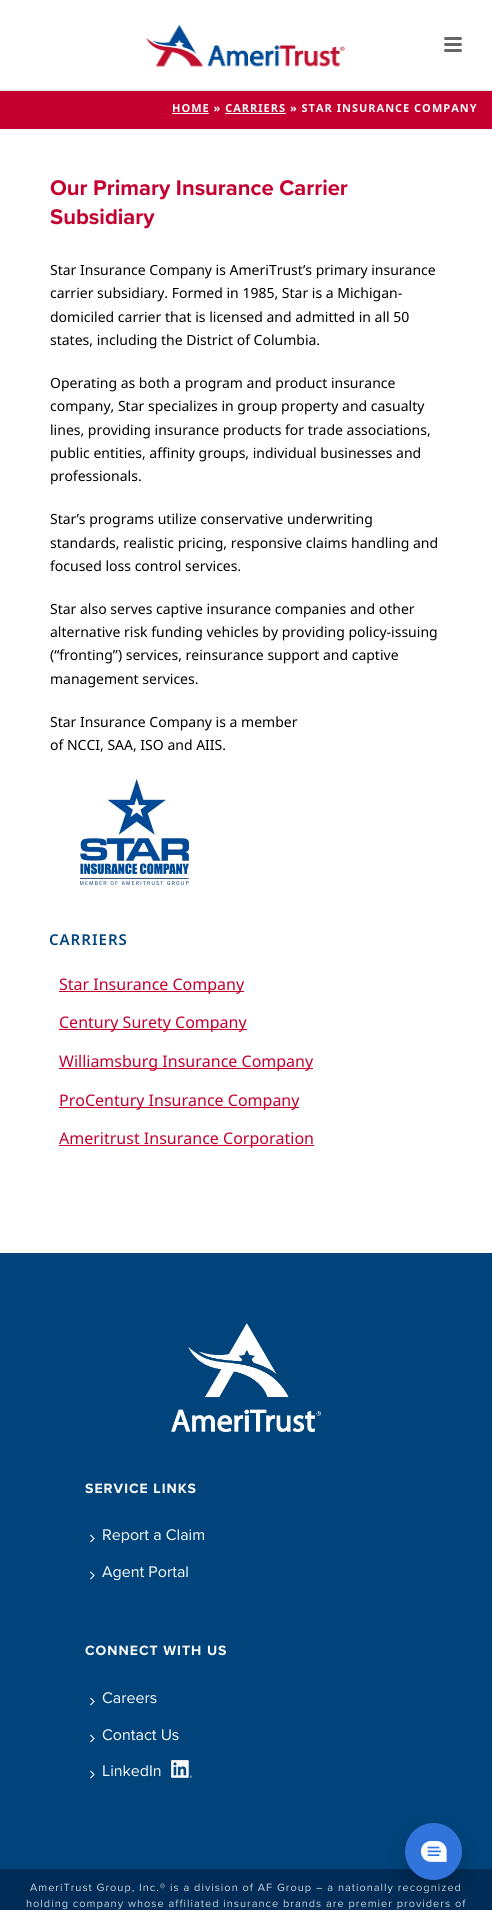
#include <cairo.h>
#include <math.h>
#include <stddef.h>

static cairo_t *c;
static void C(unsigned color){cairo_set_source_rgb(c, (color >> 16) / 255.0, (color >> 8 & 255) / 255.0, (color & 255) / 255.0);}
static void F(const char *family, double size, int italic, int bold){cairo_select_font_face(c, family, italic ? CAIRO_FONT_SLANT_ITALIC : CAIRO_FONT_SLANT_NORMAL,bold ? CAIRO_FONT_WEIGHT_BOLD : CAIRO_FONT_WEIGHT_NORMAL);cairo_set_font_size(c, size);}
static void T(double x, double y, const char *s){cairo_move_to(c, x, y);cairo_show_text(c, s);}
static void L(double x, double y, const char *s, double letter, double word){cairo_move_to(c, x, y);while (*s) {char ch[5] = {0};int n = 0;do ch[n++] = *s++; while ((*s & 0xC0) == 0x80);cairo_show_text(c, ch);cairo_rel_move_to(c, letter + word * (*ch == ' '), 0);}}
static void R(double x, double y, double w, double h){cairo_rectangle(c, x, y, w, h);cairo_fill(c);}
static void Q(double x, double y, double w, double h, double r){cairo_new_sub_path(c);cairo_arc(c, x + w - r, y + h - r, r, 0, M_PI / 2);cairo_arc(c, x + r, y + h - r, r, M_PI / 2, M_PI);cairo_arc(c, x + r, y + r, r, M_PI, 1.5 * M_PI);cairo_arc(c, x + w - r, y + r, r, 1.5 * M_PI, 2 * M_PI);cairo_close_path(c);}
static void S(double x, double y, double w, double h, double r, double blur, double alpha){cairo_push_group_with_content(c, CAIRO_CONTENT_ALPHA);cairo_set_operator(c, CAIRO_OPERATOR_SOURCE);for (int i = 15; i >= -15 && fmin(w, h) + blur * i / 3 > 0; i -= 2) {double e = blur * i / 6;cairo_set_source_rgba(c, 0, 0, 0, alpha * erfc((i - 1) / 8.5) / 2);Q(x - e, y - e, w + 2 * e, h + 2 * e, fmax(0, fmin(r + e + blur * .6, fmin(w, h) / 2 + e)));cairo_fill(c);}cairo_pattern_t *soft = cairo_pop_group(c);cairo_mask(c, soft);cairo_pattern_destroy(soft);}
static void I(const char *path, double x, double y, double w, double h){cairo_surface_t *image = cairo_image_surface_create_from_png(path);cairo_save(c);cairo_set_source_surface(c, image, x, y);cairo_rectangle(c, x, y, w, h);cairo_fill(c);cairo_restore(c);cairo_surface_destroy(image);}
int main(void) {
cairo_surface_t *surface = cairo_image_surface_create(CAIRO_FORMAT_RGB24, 492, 1910);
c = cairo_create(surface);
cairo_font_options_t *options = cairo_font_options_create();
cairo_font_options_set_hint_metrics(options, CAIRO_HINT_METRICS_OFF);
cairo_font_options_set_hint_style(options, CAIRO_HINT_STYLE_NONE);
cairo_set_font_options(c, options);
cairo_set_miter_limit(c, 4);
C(0xffffff);
cairo_paint(c);
C(0xdedede);
R(0,90,492,1);
I("1.png",146,24,200,43);
C(0x666666);
Q(444,37,18,3,1.5);
cairo_fill(c);
Q(444,43,18,3,1.5);
cairo_fill(c);
Q(444,49,18,3,1.5);
cairo_fill(c);
C(0xc3002f);
R(0,91,492,38);
F("Noto Sans",11,0,1);
C(0xffffff);
L(172,112,"HOME » CARRIERS » STAR INSURANCE COMPANY",1,0);
R(172,113,37,1);
R(225,113,61,1);
F("Proxima Nova",22,0,1);
C(0xc3002f);
T(50,195,"Our Primary Insurance Carrier");
T(50,224,"Subsidiary");
F("Noto Sans",14,0,0);
C(0x000000);
T(50,275,"Star Insurance Company is AmeriTrust’s primary insurance");
T(50,298,"carrier subsidiary. Formed in 1985, Star is a Michigan-");
T(50,322,"domiciled carrier that is licensed and admitted in all 50");
T(50,345,"states, including the District of Columbia.");
T(50,388,"Operating as both a program and product insurance");
T(50,411,"company, Star specializes in group property and casualty");
T(50,435,"lines, providing insurance products for trade associations,");
T(50,458,"public entities, affinity groups, individual businesses and");
T(50,481,"professionals.");
T(50,524,"Star’s programs utilize conservative underwriting");
T(50,548,"standards, realistic pricing, responsive claims handling and");
T(50,571,"focused loss control services.");
T(50,614,"Star also serves captive insurance companies and other");
T(50,637,"alternative risk funding vehicles by providing policy-issuing");
T(50,660,"(“fronting”) services, reinsurance support and captive");
T(50,684,"management services.");
T(50,727,"Star Insurance Company is a member");
T(50,750,"of NCCI, SAA, ISO and AIIS.");
I("2.png",80,779,109,106);
F("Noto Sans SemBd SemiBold",15,0,0);
C(0x00447b);
L(49,945,"CARRIERS",1,0);
C(0xc3002f);
R(59,991,185,1);
F("Noto Sans",16,0,0);
T(59,990,"Star Insurance Company");
R(59,1029,188,1);
T(59,1028,"Century Surety Company");
R(59,1068,254,1);
T(59,1067,"Williamsburg Insurance Company");
R(59,1107,240,1);
T(59,1106,"ProCentury Insurance Company");
R(59,1145,255,1);
T(59,1144,"Ameritrust Insurance Corporation");
C(0x00447b);
R(0,1253,492,616);
I("3.png",171,1323,150,109);
F("Proxima Nova",14,0,1);
C(0xffffff);
L(85,1493,"SERVICE LINKS",1,0);
I("4.png",90,1534,5,9);
F("Proxima Nova",16,0,0);
T(102,1540,"Report a Claim");
I("4.png",90,1571,5,9);
T(102,1577,"Agent Portal");
F("Proxima Nova",14,0,1);
L(85,1655,"CONNECT WITH US",1,0);
I("4.png",90,1697,5,9);
F("Proxima Nova",16,0,0);
T(102,1703,"Careers");
I("4.png",90,1734,5,9);
T(102,1740,"Contact Us");
I("4.png",90,1770,5,9);
T(102,1776,"LinkedIn");
I("5.png",171,1760,21,18);
C(0x002c57);
R(0,1869,492,41);
F("Proxima Nova",11,0,0);
C(0xccd5dd);
L(30,1891,"AmeriTrust Group, Inc.® is a division of AF Group – a nationally recognized",1,0);
L(26,1907,"holding company whose affiliated insurance brands are premier providers of",1,0);
C(0x000000);
S(405,1833,57,57,28.5,10,.2);
C(0x3074dc);
cairo_arc(c,433.5,1851.5,28.5,0,2 * M_PI);
cairo_fill(c);
I("6.png",421,1841,26,21);
cairo_surface_write_to_png(surface, "o.png");
cairo_font_options_destroy(options);
cairo_destroy(c);
cairo_surface_destroy(surface);
return 0;
}
